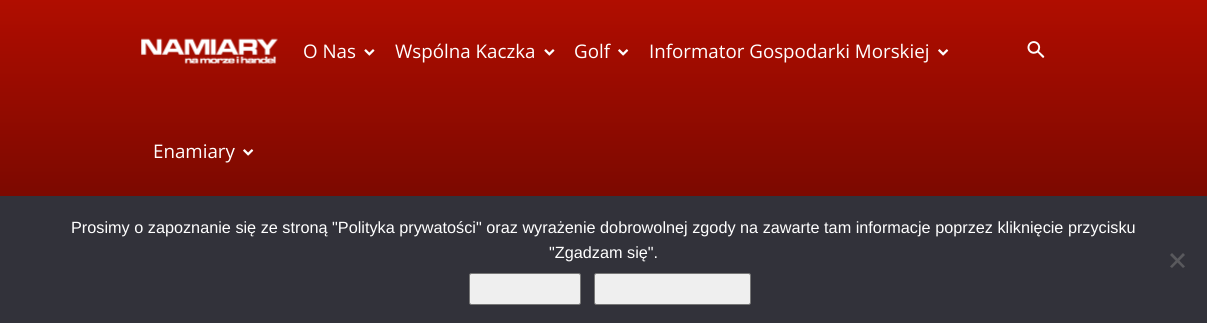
#include <cairo.h>
#include <math.h>
#include <stddef.h>

static cairo_t *c;
static void C(unsigned color){cairo_set_source_rgb(c, (color >> 16) / 255.0, (color >> 8 & 255) / 255.0, (color & 255) / 255.0);}
static void F(const char *family, double size, int italic, int bold){cairo_select_font_face(c, family, italic ? CAIRO_FONT_SLANT_ITALIC : CAIRO_FONT_SLANT_NORMAL,bold ? CAIRO_FONT_WEIGHT_BOLD : CAIRO_FONT_WEIGHT_NORMAL);cairo_set_font_size(c, size);}
static void T(double x, double y, const char *s){cairo_move_to(c, x, y);cairo_show_text(c, s);}
static void R(double x, double y, double w, double h){cairo_rectangle(c, x, y, w, h);cairo_fill(c);}
static void Q(double x, double y, double w, double h, double r){cairo_new_sub_path(c);cairo_arc(c, x + w - r, y + h - r, r, 0, M_PI / 2);cairo_arc(c, x + r, y + h - r, r, M_PI / 2, M_PI);cairo_arc(c, x + r, y + r, r, M_PI, 1.5 * M_PI);cairo_arc(c, x + w - r, y + r, r, 1.5 * M_PI, 2 * M_PI);cairo_close_path(c);}
static void I(const char *path, double x, double y, double w, double h){cairo_surface_t *image = cairo_image_surface_create_from_png(path);cairo_save(c);cairo_set_source_surface(c, image, x, y);cairo_rectangle(c, x, y, w, h);cairo_fill(c);cairo_restore(c);cairo_surface_destroy(image);}
int main(void) {
cairo_surface_t *surface = cairo_image_surface_create(CAIRO_FORMAT_RGB24, 1207, 323);
c = cairo_create(surface);
cairo_font_options_t *options = cairo_font_options_create();
cairo_font_options_set_hint_metrics(options, CAIRO_HINT_METRICS_OFF);
cairo_font_options_set_hint_style(options, CAIRO_HINT_STYLE_NONE);
cairo_set_font_options(c, options);
cairo_set_miter_limit(c, 4);
cairo_pattern_t *gradient;
C(0xffffff);
cairo_paint(c);
gradient = cairo_pattern_create_linear(604,0,604,200);
cairo_pattern_add_color_stop_rgba(gradient,0,0.69,0.051,0,1);
cairo_pattern_add_color_stop_rgba(gradient,1,0.482,0.035,0,1);
cairo_set_source(c,gradient);
cairo_pattern_destroy(gradient);
R(0,0,1207,196);
I("1.png",141,38,137,26);
F("Open Sans",18.75,0,0);
C(0xffffff);
T(303,58,"O Nas");
I("2.png",364,49,11,7);
T(395,58,"Wspólna Kaczka");
I("2.png",544,49,11,7);
T(574,58,"Golf");
I("3.png",618,49,11,7);
T(649,58,"Informator Gospodarki Morskiej");
I("3.png",938,49,11,7);
T(153,158,"Enamiary");
I("4.png",243,149,11,7);
I("5.png",1027,41,18,17);
C(0x32323a);
R(0,196,1207,127);
F("Liberation Sans",16.25,0,0);
C(0xffffff);
T(71,233,"Prosimy o zapoznanie się ze stroną \"Polityka prywatości\" oraz wyrażenie dobrowolnej zgody na zawarte tam informacje poprzez kliknięcie przycisku");
T(549,258,"\"Zgadzam się\".");
C(0x59595d);
cairo_new_path(c);
cairo_move_to(c,1183,253);
cairo_line_to(c,1185,255);
cairo_line_to(c,1172,268);
cairo_line_to(c,1170,266.5);
cairo_close_path(c);
cairo_fill(c);
cairo_new_path(c);
cairo_move_to(c,1170,255);
cairo_line_to(c,1172,253);
cairo_line_to(c,1185,266.5);
cairo_line_to(c,1183,268);
cairo_close_path(c);
cairo_fill(c);
C(0xefefef);
Q(469.5,273.5,111,31,2);
cairo_fill_preserve(c);
C(0x767676);
cairo_set_line_width(c,1);
cairo_stroke(c);
C(0xefefef);
Q(594.5,273.5,156,31,2);
cairo_fill_preserve(c);
C(0x767676);
cairo_stroke(c);
cairo_surface_write_to_png(surface, "o.png");
cairo_font_options_destroy(options);
cairo_destroy(c);
cairo_surface_destroy(surface);
return 0;
}
